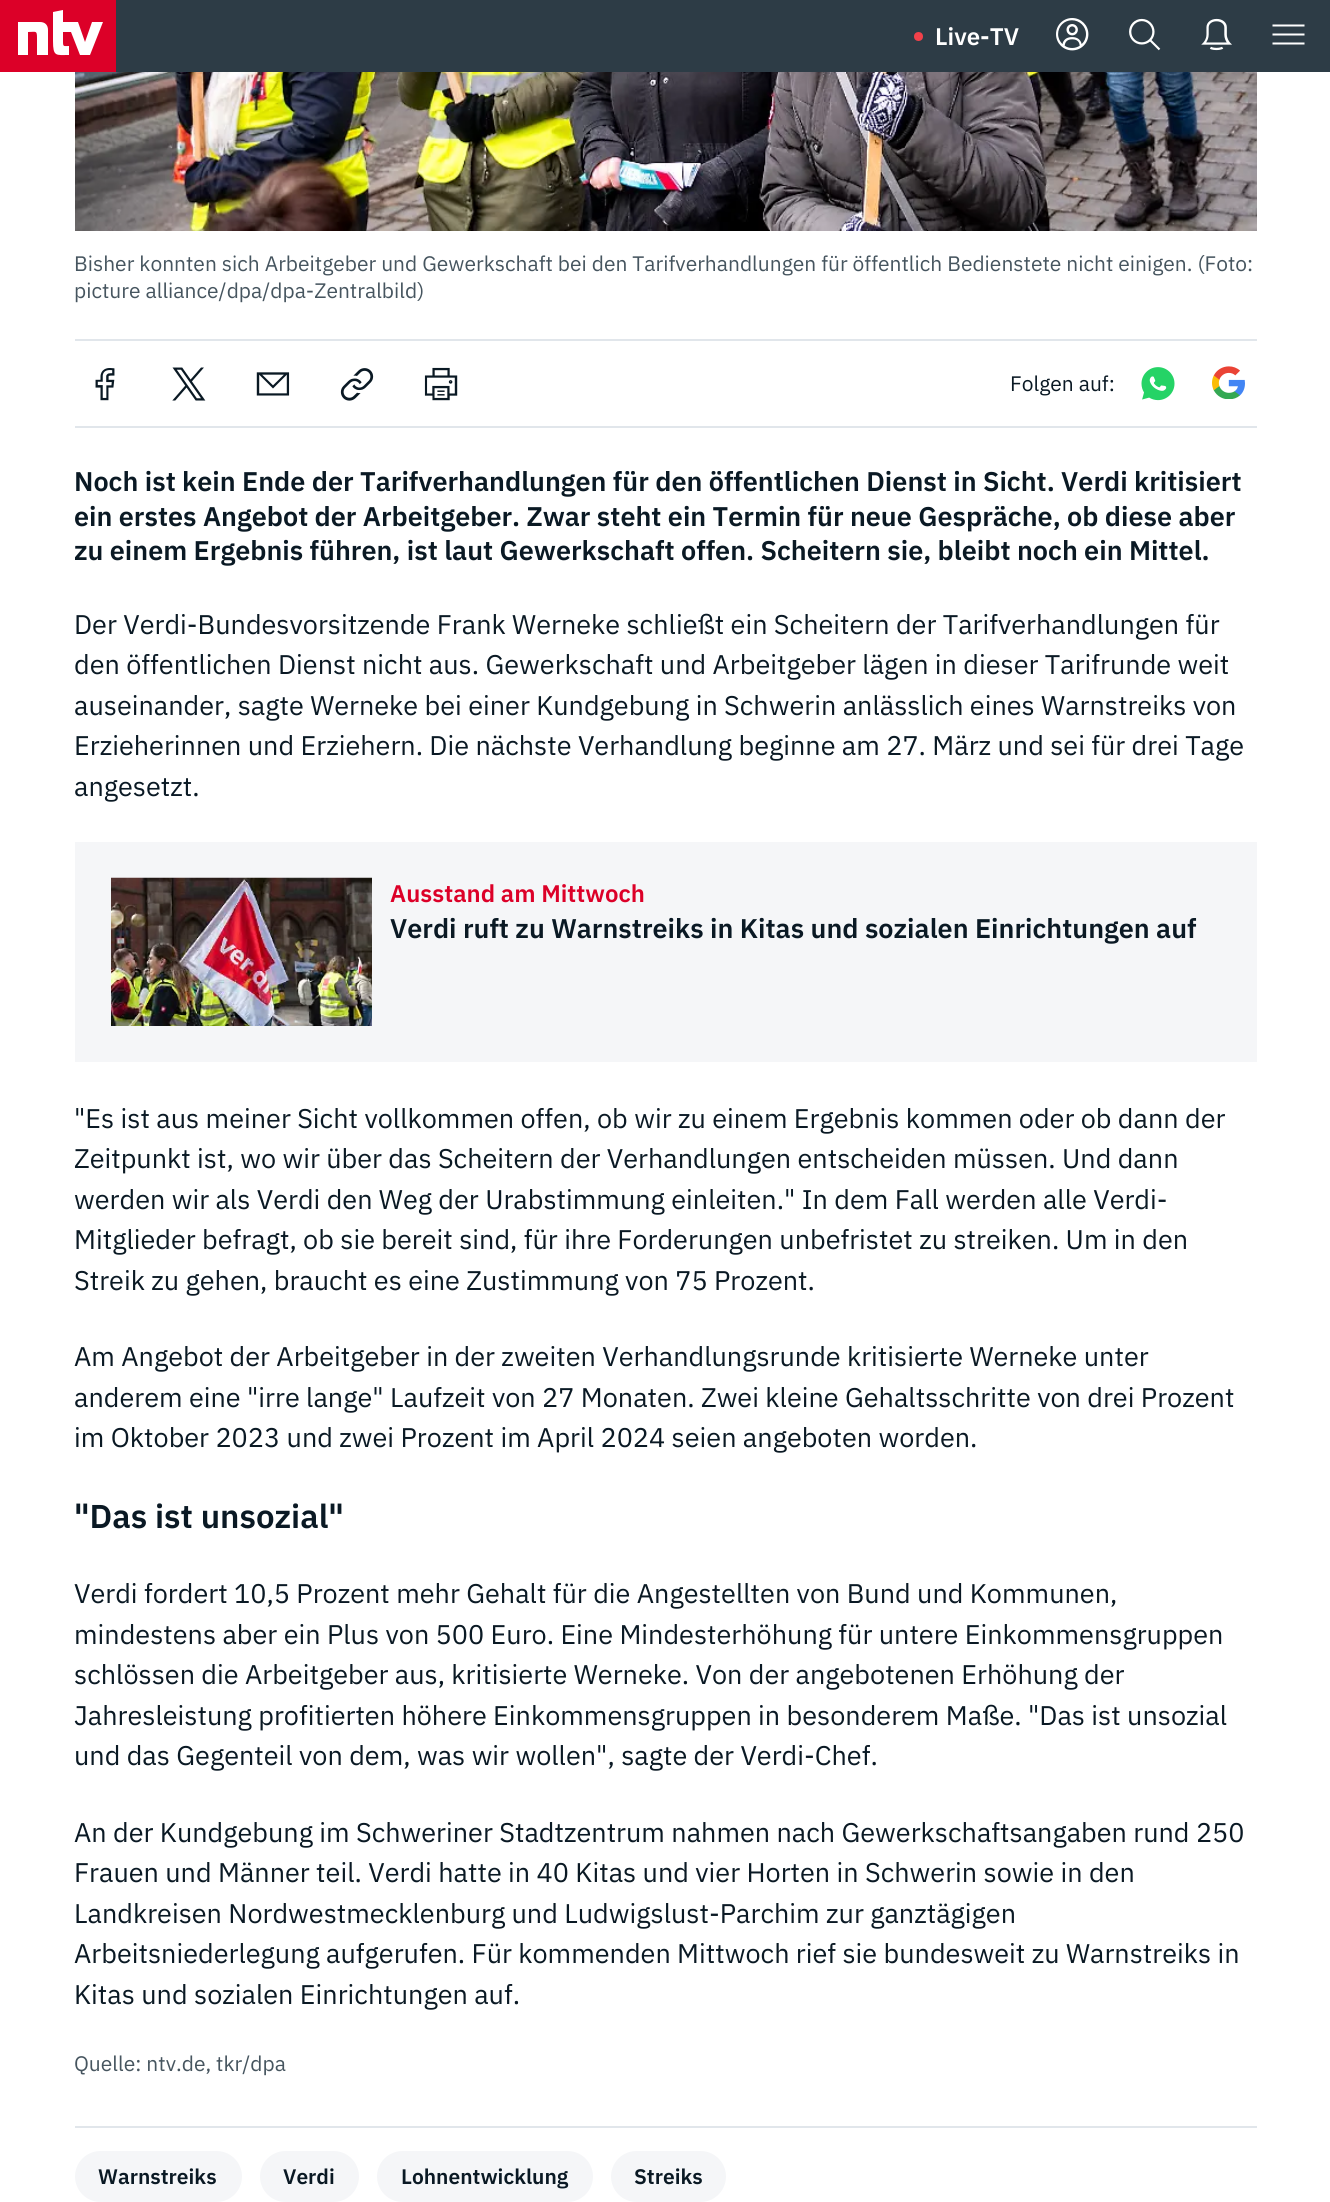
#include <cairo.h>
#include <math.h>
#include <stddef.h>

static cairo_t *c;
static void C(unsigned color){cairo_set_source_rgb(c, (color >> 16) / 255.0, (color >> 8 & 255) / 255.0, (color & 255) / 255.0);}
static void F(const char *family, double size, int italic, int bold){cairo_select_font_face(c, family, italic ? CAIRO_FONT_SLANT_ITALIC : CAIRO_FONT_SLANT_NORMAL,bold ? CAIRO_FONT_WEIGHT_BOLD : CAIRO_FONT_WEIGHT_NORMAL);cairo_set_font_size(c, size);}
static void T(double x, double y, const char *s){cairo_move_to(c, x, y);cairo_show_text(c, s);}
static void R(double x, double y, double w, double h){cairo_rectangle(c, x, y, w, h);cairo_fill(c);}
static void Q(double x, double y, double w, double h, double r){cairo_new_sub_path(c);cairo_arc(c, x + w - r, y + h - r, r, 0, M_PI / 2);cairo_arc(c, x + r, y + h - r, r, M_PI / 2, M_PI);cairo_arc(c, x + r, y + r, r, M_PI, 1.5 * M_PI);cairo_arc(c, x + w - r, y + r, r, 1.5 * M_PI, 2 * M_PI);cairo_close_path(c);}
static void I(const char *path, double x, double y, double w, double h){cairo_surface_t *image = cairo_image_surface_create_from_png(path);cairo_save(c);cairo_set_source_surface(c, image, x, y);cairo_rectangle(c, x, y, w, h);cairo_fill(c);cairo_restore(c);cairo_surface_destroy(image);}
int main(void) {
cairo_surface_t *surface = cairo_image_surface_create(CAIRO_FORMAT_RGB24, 1330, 2202);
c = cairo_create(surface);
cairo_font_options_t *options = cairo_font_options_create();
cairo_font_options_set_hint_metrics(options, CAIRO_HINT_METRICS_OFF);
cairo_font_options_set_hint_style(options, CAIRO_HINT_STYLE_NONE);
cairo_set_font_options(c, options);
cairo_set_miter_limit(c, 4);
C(0xffffff);
cairo_paint(c);
C(0x2d3c46);
R(116,0,1214,72);
C(0xdc0028);
R(0,0,116,72);
C(0xffffff);
cairo_new_path(c);
cairo_move_to(c,40,22);
cairo_line_to(c,18,22);
cairo_line_to(c,18,55);
cairo_line_to(c,28,55);
cairo_line_to(c,28,32);
cairo_curve_to(c,36,32,37,30,37,38);
cairo_line_to(c,37,55);
cairo_line_to(c,48,55);
cairo_line_to(c,48,30);
cairo_curve_to(c,48,25,45,22,40,22);
cairo_close_path(c);
cairo_move_to(c,92,22);
cairo_line_to(c,85,42);
cairo_line_to(c,78,22);
cairo_line_to(c,63,22);
cairo_line_to(c,63,10);
cairo_line_to(c,53,12);
cairo_line_to(c,53,41);
cairo_curve_to(c,53,57,56,55,69,55);
cairo_line_to(c,69,46);
cairo_curve_to(c,64,46,63,47,63,42);
cairo_line_to(c,63,32);
cairo_line_to(c,71,32);
cairo_line_to(c,80,55);
cairo_line_to(c,90,55);
cairo_line_to(c,103,22);
cairo_close_path(c);
cairo_fill(c);
C(0xf2414a);
cairo_arc(c,918.5,36.5,4.5,0,2 * M_PI);
cairo_fill(c);
F("IBM Plex Sans SemiBold",24,0,0);
C(0xffffff);
T(935,45,"Live-TV");
I("1.png",1056,18,33,33);
I("2.png",1129,18,32,33);
I("3.png",1201,18,31,33);
cairo_new_path(c);
cairo_move_to(c,1304.5,24.5);
cairo_line_to(c,1272.5,24.5);
cairo_line_to(c,1272.5,26.5);
cairo_line_to(c,1304.5,26.5);
cairo_close_path(c);
cairo_move_to(c,1304.5,42.5);
cairo_line_to(c,1272.5,42.5);
cairo_line_to(c,1272.5,44.5);
cairo_line_to(c,1304.5,44.5);
cairo_close_path(c);
cairo_move_to(c,1272.5,33.5);
cairo_line_to(c,1304.5,33.5);
cairo_line_to(c,1304.5,35.5);
cairo_line_to(c,1272.5,35.5);
cairo_close_path(c);
cairo_fill(c);
I("4.png",75,72,1182,159);
F("IBM Plex Sans",21,0,0);
C(0x46555f);
T(74,271,"Bisher konnten sich Arbeitgeber und Gewerkschaft bei den Tarifverhandlungen für öffentlich Bedienstete nicht einigen. (Foto:");
T(74,298,"picture alliance/dpa/dpa-Zentralbild)");
C(0xe1e6eb);
R(75,339,1182,2);
R(75,426,1182,2);
I("5.png",95,368,20,33);
I("6.png",172,367,34,34);
I("7.png",256,372,34,24);
I("8.png",340,368,34,33);
I("9.png",424,367,34,34);
C(0x0a1924);
T(1010,391,"Folgen auf:");
I("10.png",1141,367,34,34);
I("11.png",1212,366,33,33);
F("IBM Plex Sans SemiBold",27,0,0);
T(74,491,"Noch ist kein Ende der Tarifverhandlungen für den öffentlichen Dienst in Sicht. Verdi kritisiert");
T(74,526,"ein erstes Angebot der Arbeitgeber. Zwar steht ein Termin für neue Gespräche, ob diese aber");
T(74,560,"zu einem Ergebnis führen, ist laut Gewerkschaft offen. Scheitern sie, bleibt noch ein Mittel.");
F("IBM Plex Sans",27,0,0);
T(74,634,"Der Verdi-Bundesvorsitzende Frank Werneke schließt ein Scheitern der Tarifverhandlungen für");
T(74,674,"den öffentlichen Dienst nicht aus. Gewerkschaft und Arbeitgeber lägen in dieser Tarifrunde weit");
T(74,715,"auseinander, sagte Werneke bei einer Kundgebung in Schwerin anlässlich eines Warnstreiks von");
T(74,755,"Erzieherinnen und Erziehern. Die nächste Verhandlung beginne am 27. März und sei für drei Tage");
T(74,796,"angesetzt.");
C(0xf5f6f8);
R(75,842,1182,220);
I("12.png",111,877,261,149);
F("IBM Plex Sans SemiBold",24,0,0);
C(0xdc0028);
T(390,902,"Ausstand am Mittwoch");
F("IBM Plex Sans SemiBold",27,0,0);
C(0x0a1924);
T(390,938,"Verdi ruft zu Warnstreiks in Kitas und sozialen Einrichtungen auf");
F("IBM Plex Sans",27,0,0);
T(74,1128,"\"Es ist aus meiner Sicht vollkommen offen, ob wir zu einem Ergebnis kommen oder ob dann der");
T(74,1168,"Zeitpunkt ist, wo wir über das Scheitern der Verhandlungen entscheiden müssen. Und dann");
T(74,1209,"werden wir als Verdi den Weg der Urabstimmung einleiten.\" In dem Fall werden alle Verdi-");
T(74,1249,"Mitglieder befragt, ob sie bereit sind, für ihre Forderungen unbefristet zu streiken. Um in den");
T(74,1290,"Streik zu gehen, braucht es eine Zustimmung von 75 Prozent.");
T(74,1366,"Am Angebot der Arbeitgeber in der zweiten Verhandlungsrunde kritisierte Werneke unter");
T(74,1407,"anderem eine \"irre lange\" Laufzeit von 27 Monaten. Zwei kleine Gehaltsschritte von drei Prozent");
T(74,1447,"im Oktober 2023 und zwei Prozent im April 2024 seien angeboten worden.");
F("IBM Plex Sans SemiBold",33,0,0);
T(74,1528,"\"Das ist unsozial\"");
F("IBM Plex Sans",27,0,0);
T(74,1603,"Verdi fordert 10,5 Prozent mehr Gehalt für die Angestellten von Bund und Kommunen,");
T(74,1644,"mindestens aber ein Plus von 500 Euro. Eine Mindesterhöhung für untere Einkommensgruppen");
T(74,1684,"schlössen die Arbeitgeber aus, kritisierte Werneke. Von der angebotenen Erhöhung der");
T(74,1725,"Jahresleistung profitierten höhere Einkommensgruppen in besonderem Maße. \"Das ist unsozial");
T(74,1765,"und das Gegenteil von dem, was wir wollen\", sagte der Verdi-Chef.");
T(74,1842,"An der Kundgebung im Schweriner Stadtzentrum nahmen nach Gewerkschaftsangaben rund 250");
T(74,1882,"Frauen und Männer teil. Verdi hatte in 40 Kitas und vier Horten in Schwerin sowie in den");
T(74,1923,"Landkreisen Nordwestmecklenburg und Ludwigslust-Parchim zur ganztägigen");
T(74,1963,"Arbeitsniederlegung aufgerufen. Für kommenden Mittwoch rief sie bundesweit zu Warnstreiks in");
T(74,2004,"Kitas und sozialen Einrichtungen auf.");
F("IBM Plex Sans",21,0,0);
C(0x46555f);
T(74,2071,"Quelle: ntv.de, tkr/dpa");
C(0xe1e6eb);
R(75,2126,1182,2);
C(0xf5f6f8);
Q(75,2151,167,51,25.5);
cairo_fill(c);
F("IBM Plex Sans SemiBold",21,0,0);
C(0x0a1924);
T(98,2184,"Warnstreiks");
C(0xf5f6f8);
Q(260,2151,99,51,25.5);
cairo_fill(c);
C(0x0a1924);
T(283,2184,"Verdi");
C(0xf5f6f8);
Q(377,2151,216,51,25.5);
cairo_fill(c);
C(0x0a1924);
T(401,2184,"Lohnentwicklung");
C(0xf5f6f8);
Q(611,2151,115,51,25.5);
cairo_fill(c);
C(0x0a1924);
T(634,2184,"Streiks");
cairo_surface_write_to_png(surface, "o.png");
cairo_font_options_destroy(options);
cairo_destroy(c);
cairo_surface_destroy(surface);
return 0;
}
